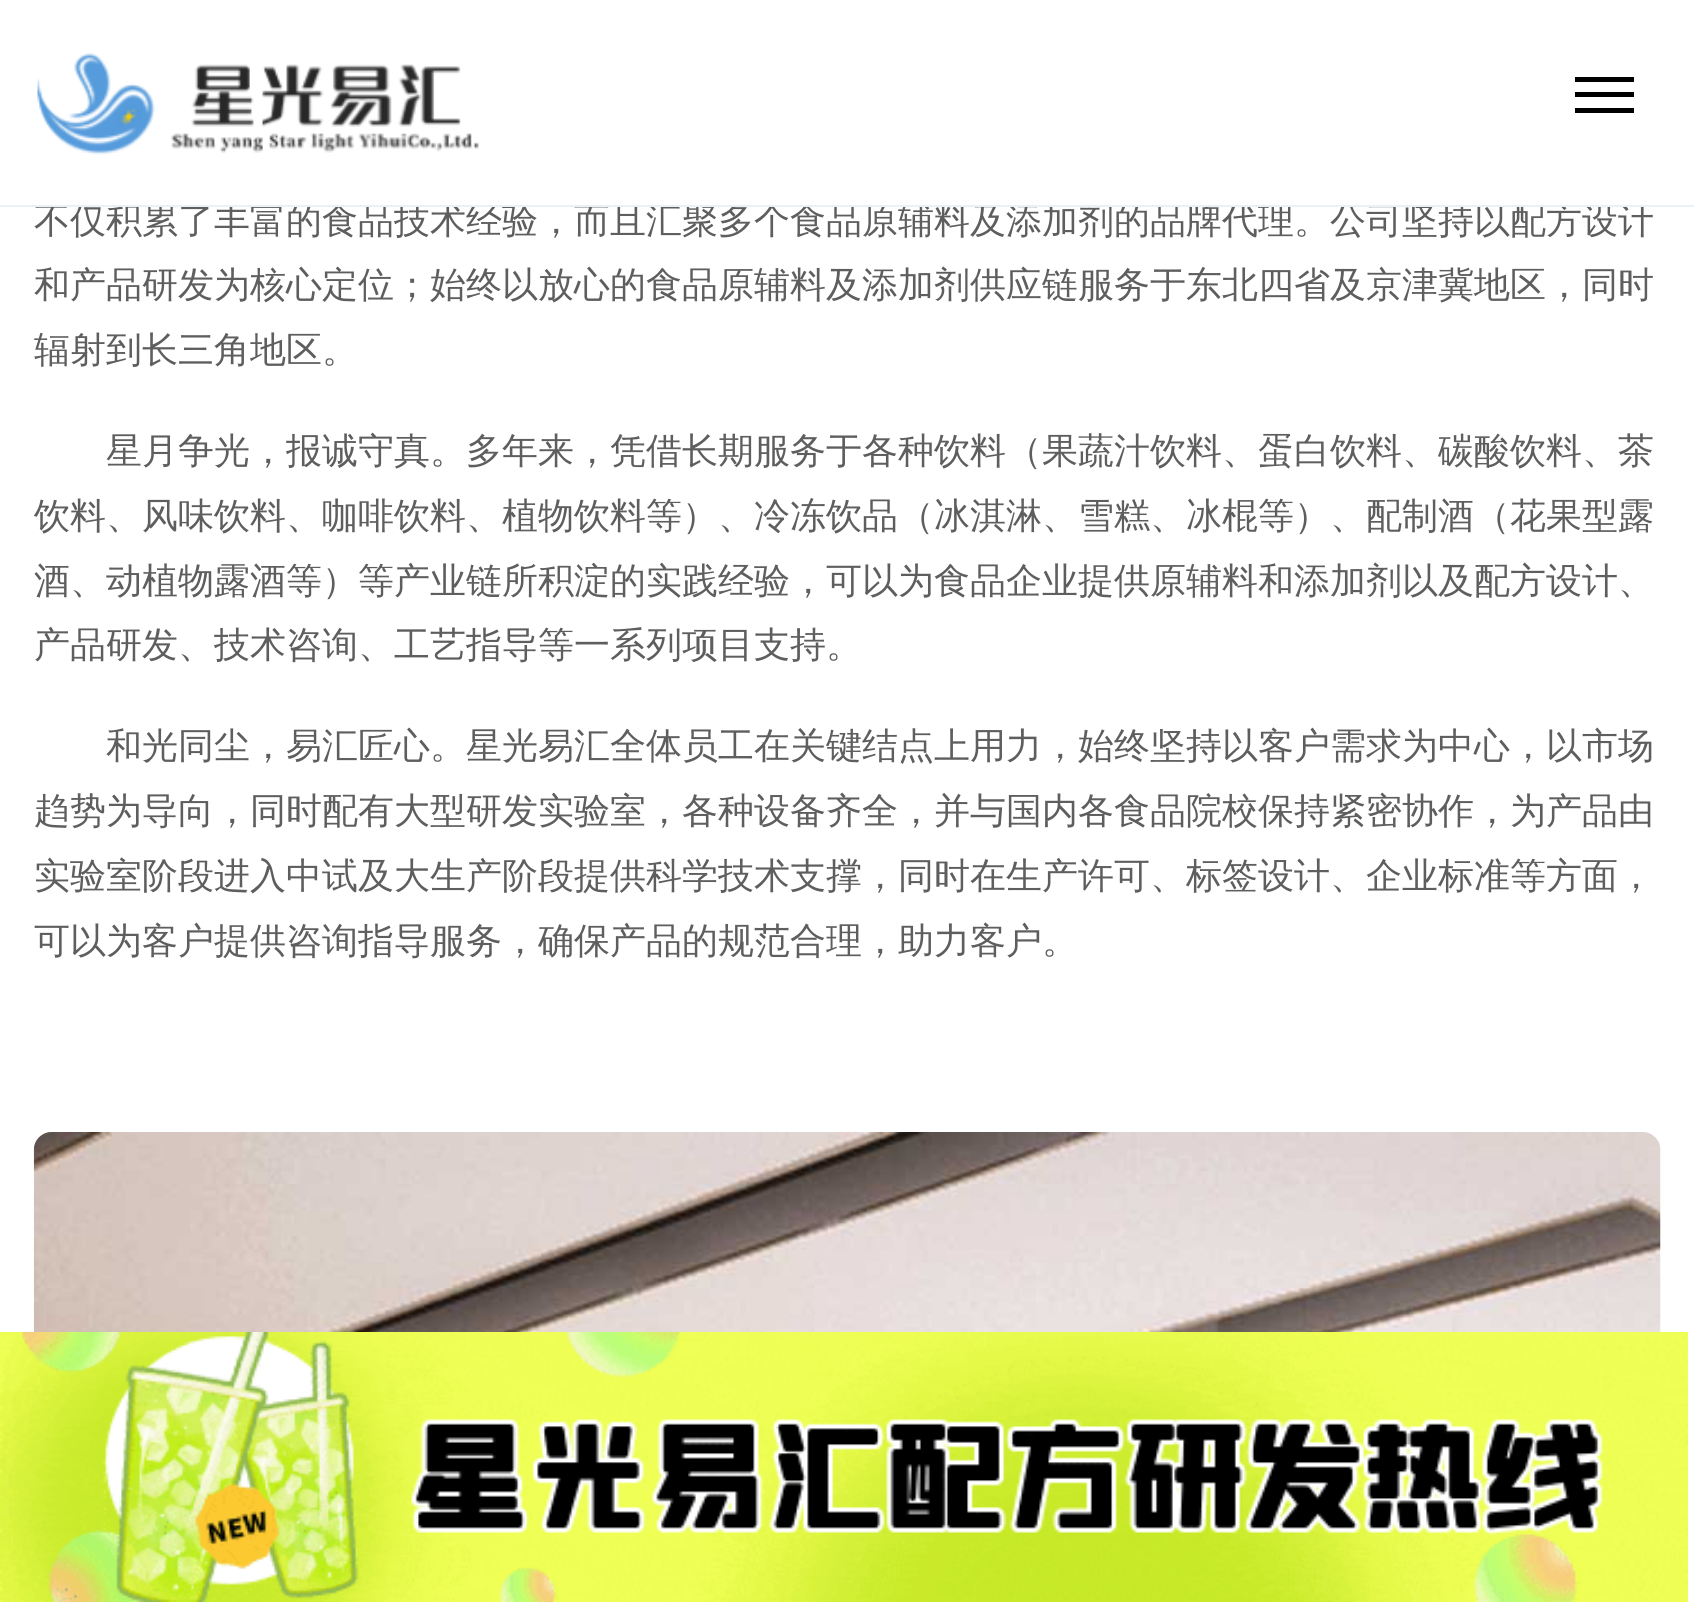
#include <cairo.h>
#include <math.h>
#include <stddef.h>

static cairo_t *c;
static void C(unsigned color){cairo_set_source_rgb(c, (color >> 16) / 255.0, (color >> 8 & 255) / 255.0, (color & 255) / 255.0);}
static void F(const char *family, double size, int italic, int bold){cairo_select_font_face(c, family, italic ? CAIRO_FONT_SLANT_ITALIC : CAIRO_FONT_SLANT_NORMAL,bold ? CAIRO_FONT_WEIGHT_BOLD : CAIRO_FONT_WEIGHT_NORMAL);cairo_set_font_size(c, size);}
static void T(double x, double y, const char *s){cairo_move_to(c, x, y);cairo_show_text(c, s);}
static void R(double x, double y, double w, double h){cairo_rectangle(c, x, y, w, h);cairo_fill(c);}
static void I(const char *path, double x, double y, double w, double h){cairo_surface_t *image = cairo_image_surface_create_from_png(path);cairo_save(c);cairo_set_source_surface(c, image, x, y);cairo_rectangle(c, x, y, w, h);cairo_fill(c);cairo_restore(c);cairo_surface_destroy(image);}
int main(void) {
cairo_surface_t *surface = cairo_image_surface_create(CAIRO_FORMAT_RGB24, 1694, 1602);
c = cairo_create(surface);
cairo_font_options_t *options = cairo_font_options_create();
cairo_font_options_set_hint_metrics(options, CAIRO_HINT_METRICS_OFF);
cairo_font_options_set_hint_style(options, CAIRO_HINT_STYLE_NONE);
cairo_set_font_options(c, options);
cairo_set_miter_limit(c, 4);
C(0xffffff);
cairo_paint(c);
F("WenQuanYi Zen Hei Medium",36,0,0);
C(0x5e5e5e);
T(34,233,"不仅积累了丰富的食品技术经验，而且汇聚多个食品原辅料及添加剂的品牌代理。公司坚持以配方设计");
C(0xffffff);
R(79,202,1565,3);
C(0xe8f1f7);
R(0,205,1694,2);
I("1.png",37,53,442,102);
C(0x000000);
R(1575,77,59,5);
R(1575,92,59,5);
R(1575,108,59,5);
C(0x5e5e5e);
T(34,297,"和产品研发为核心定位；始终以放心的食品原辅料及添加剂供应链服务于东北四省及京津冀地区，同时");
T(34,362,"辐射到长三角地区。");
T(106,463,"星月争光，报诚守真。多年来，凭借长期服务于各种饮料（果蔬汁饮料、蛋白饮料、碳酸饮料、茶");
T(34,528,"饮料、风味饮料、咖啡饮料、植物饮料等）、冷冻饮品（冰淇淋、雪糕、冰棍等）、配制酒（花果型露");
T(34,593,"酒、动植物露酒等）等产业链所积淀的实践经验，可以为食品企业提供原辅料和添加剂以及配方设计、");
T(34,657,"产品研发、技术咨询、工艺指导等一系列项目支持。");
T(106,758,"和光同尘，易汇匠心。星光易汇全体员工在关键结点上用力，始终坚持以客户需求为中心，以市场");
T(34,823,"趋势为导向，同时配有大型研发实验室，各种设备齐全，并与国内各食品院校保持紧密协作，为产品由");
T(34,888,"实验室阶段进入中试及大生产阶段提供科学技术支撑，同时在生产许可、标签设计、企业标准等方面，");
T(34,953,"可以为客户提供咨询指导服务，确保产品的规范合理，助力客户。");
I("2.png",33,1132,1628,200);
I("3.png",0,1332,1688,270);
cairo_surface_write_to_png(surface, "o.png");
cairo_font_options_destroy(options);
cairo_destroy(c);
cairo_surface_destroy(surface);
return 0;
}
